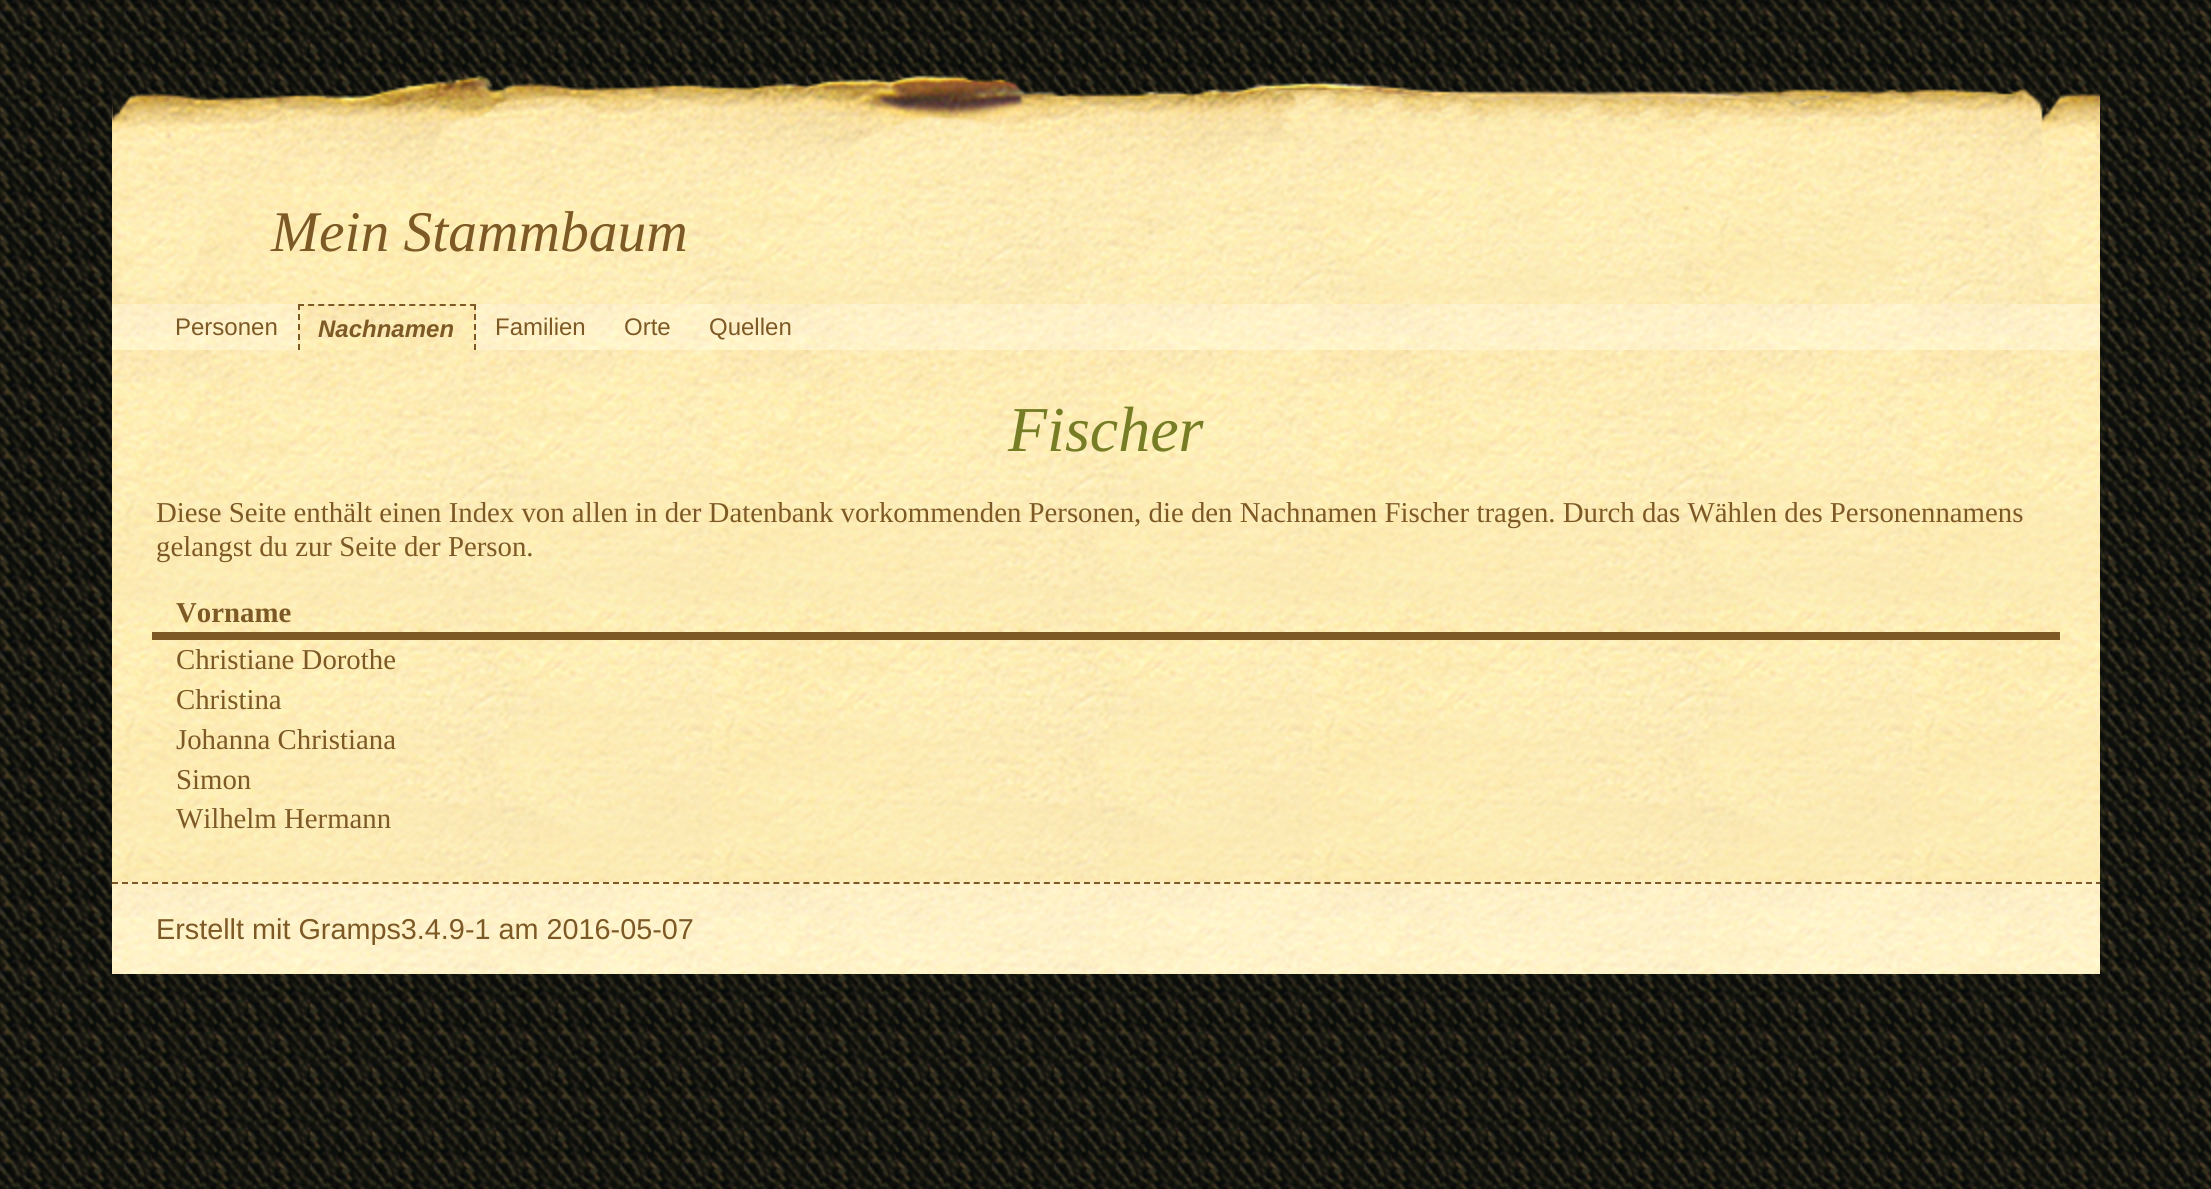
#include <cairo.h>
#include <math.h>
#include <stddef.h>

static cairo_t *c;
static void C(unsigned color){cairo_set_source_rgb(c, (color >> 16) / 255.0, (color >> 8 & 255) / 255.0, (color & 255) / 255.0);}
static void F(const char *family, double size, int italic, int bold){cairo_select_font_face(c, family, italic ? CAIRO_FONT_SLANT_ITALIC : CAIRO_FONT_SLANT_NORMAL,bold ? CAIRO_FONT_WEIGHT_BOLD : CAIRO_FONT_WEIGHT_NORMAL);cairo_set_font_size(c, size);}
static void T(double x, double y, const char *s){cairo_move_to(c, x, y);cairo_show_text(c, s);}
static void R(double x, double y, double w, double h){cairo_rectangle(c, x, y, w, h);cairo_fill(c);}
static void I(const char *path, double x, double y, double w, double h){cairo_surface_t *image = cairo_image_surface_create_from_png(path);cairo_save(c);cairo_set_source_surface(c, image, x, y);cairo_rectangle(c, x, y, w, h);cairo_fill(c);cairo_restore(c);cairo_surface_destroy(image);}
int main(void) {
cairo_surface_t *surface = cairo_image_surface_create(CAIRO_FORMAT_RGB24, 2211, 1189);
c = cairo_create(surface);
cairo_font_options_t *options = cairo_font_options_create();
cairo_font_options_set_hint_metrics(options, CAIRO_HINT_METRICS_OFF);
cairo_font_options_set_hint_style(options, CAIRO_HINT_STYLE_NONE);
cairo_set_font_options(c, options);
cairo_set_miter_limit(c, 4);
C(0xffffff);
cairo_paint(c);
I("1.png",0,0,2211,1189);
I("2.png",112,75,1988,229);
F("Liberation Serif",57.5,1,0);
C(0x7d5925);
T(271,251,"Mein Stammbaum");
I("3.png",112,304,1988,46);
F("Liberation Sans",24,0,0);
T(175,335,"Personen");
I("4.png",298,304,178,46);
cairo_new_path(c);
cairo_move_to(c,298,305);
cairo_line_to(c,476,305);
cairo_set_dash(c,(double[]){6,4.12},2,0);
cairo_stroke(c);
cairo_new_path(c);
cairo_move_to(c,475,304);
cairo_line_to(c,475,350);
cairo_set_dash(c,(double[]){6,4},2,0);
cairo_stroke(c);
cairo_new_path(c);
cairo_move_to(c,299,304);
cairo_line_to(c,299,350);
cairo_stroke(c);
F("Liberation Sans",24,1,1);
T(318,337,"Nachnamen");
F("Liberation Sans",24,0,0);
T(495,335,"Familien");
T(624,335,"Orte");
T(709,335,"Quellen");
I("5.png",112,350,1988,532);
F("Liberation Serif",64,1,0);
C(0x767d25);
T(1008,451,"Fischer");
F("Liberation Serif",28.8,0,0);
C(0x7d5925);
T(156,522,"Diese Seite enthält einen Index von allen in der Datenbank vorkommenden Personen, die den Nachnamen Fischer tragen. Durch das Wählen des Personennamens");
T(156,556,"gelangst du zur Seite der Person.");
R(152,632,1908,8);
F("Liberation Serif",28.8,0,1);
T(176,622,"Vorname");
F("Liberation Serif",28.8,0,0);
T(176,669,"Christiane Dorothe");
T(176,709,"Christina");
T(176,749,"Johanna Christiana");
T(176,789,"Simon");
T(176,828,"Wilhelm Hermann");
I("6.png",112,882,1988,92);
cairo_new_path(c);
cairo_move_to(c,112,883);
cairo_line_to(c,2100,883);
cairo_set_dash(c,(double[]){6,4.02},2,0);
cairo_stroke(c);
F("Liberation Sans",28.8,0,0);
T(156,939,"Erstellt mit Gramps3.4.9-1 am 2016-05-07");
cairo_surface_write_to_png(surface, "o.png");
cairo_font_options_destroy(options);
cairo_destroy(c);
cairo_surface_destroy(surface);
return 0;
}
